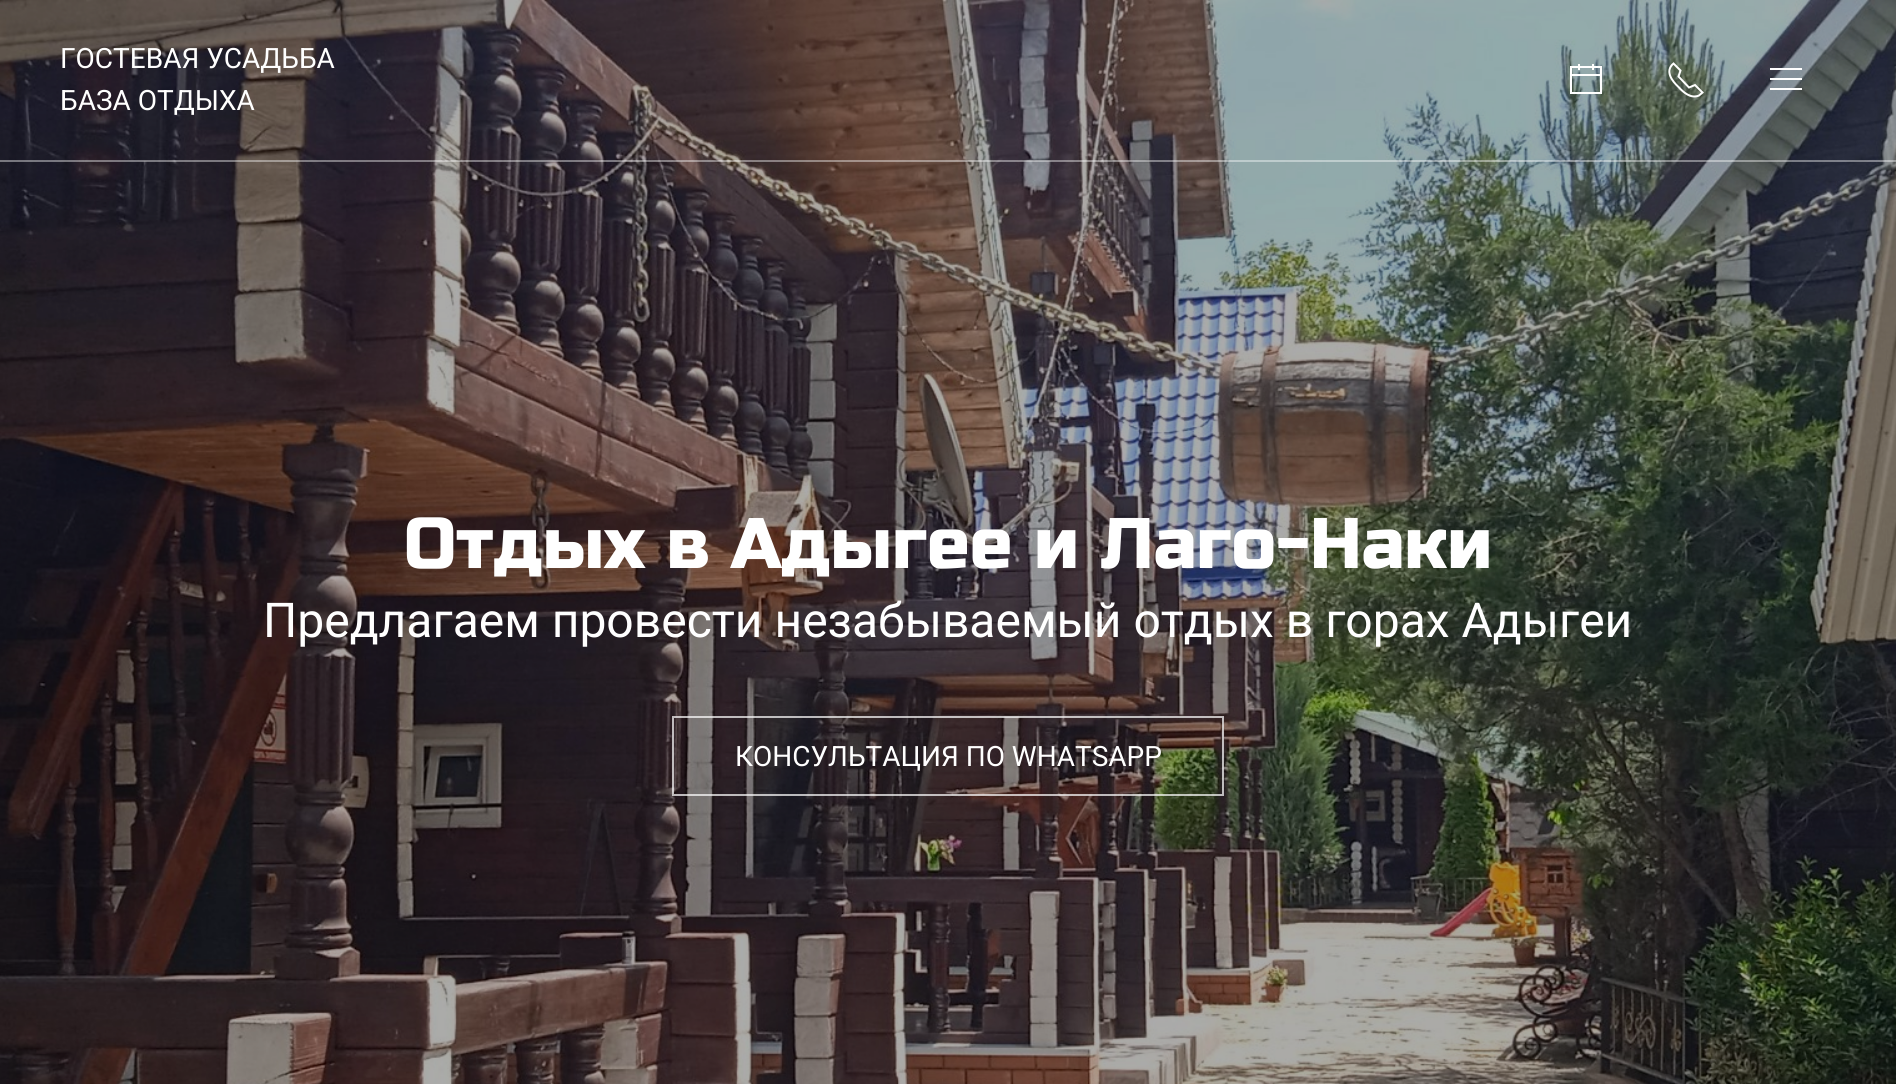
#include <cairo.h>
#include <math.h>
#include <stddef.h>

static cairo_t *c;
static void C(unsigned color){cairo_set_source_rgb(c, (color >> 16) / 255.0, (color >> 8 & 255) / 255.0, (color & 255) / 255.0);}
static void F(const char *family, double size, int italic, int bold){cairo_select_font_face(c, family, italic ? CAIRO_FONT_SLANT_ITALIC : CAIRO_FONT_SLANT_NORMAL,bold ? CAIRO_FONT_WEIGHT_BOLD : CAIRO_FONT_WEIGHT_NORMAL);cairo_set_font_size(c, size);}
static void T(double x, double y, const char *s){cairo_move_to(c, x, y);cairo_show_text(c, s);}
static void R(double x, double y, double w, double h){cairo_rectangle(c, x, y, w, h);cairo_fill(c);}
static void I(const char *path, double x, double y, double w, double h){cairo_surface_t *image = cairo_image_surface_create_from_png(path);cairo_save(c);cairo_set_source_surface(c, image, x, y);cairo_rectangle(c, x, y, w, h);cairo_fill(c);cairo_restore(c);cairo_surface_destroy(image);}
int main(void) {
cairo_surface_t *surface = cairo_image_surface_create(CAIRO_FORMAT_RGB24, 1896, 1084);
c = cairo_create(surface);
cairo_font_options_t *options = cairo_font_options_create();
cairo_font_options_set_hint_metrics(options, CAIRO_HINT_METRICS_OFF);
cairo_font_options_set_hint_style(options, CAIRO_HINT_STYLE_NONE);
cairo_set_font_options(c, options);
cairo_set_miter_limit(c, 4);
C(0xffffff);
cairo_paint(c);
I("2.png",0,0,1896,1084);
cairo_set_source_rgba(c,1,1,1,0.41);
R(0,160,1896,2);
F("Roboto",28,0,0);
C(0xffffff);
T(60,68,"ГОСТЕВАЯ УСАДЬБА");
T(60,110,"БАЗА ОТДЫХА");
I("1.png",1570,64,32,30);
cairo_new_path(c);
cairo_move_to(c,1678.5,87);
cairo_curve_to(c,1683.5,92.5,1691,99,1699,95.5);
cairo_line_to(c,1702.5,92.5);
cairo_line_to(c,1695,85);
cairo_line_to(c,1689,87.5);
cairo_line_to(c,1678.5,76.5);
cairo_line_to(c,1680.5,70.5);
cairo_line_to(c,1673.5,63.5);
cairo_curve_to(c,1664.5,71,1672,81,1678.5,87);
cairo_stroke(c);
R(1770,68,32,2);
R(1770,78,32,2);
R(1770,88,32,2);
F("Russo One",71.4,0,0);
T(404,568,"Отдых в Адыгее и Лаго-Наки");
F("Roboto",48,0,0);
T(263,637,"Предлагаем провести незабываемый отдых в горах Адыгеи");
cairo_rectangle(c,673,717,550,78);
cairo_set_source_rgba(c,1,1,1,0.7);
cairo_stroke(c);
F("Roboto",28,0,0);
C(0xffffff);
T(735,766,"КОНСУЛЬТАЦИЯ ПО WHATSAPP");
cairo_surface_write_to_png(surface, "o.png");
cairo_font_options_destroy(options);
cairo_destroy(c);
cairo_surface_destroy(surface);
return 0;
}
